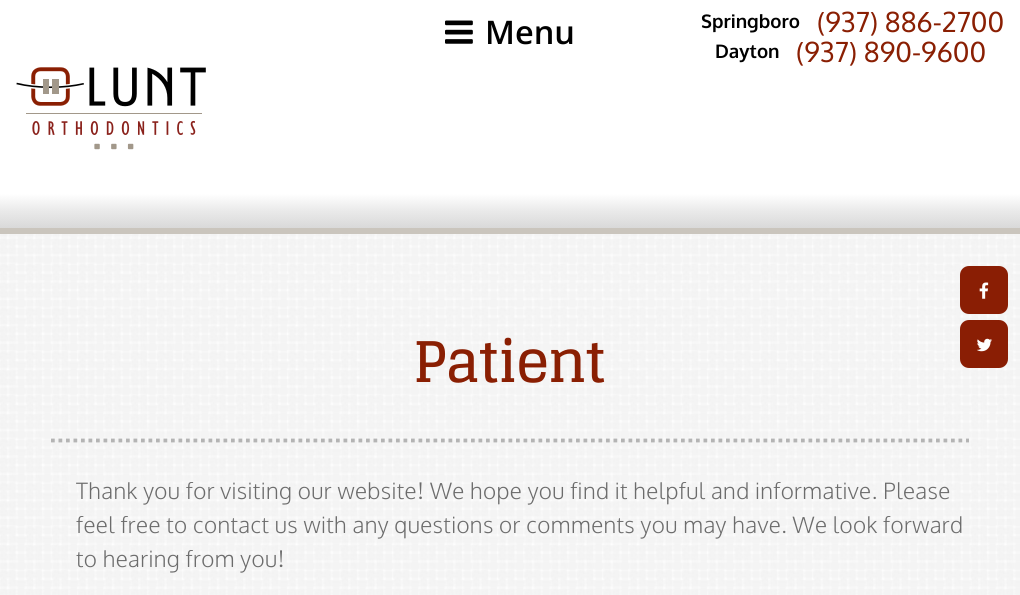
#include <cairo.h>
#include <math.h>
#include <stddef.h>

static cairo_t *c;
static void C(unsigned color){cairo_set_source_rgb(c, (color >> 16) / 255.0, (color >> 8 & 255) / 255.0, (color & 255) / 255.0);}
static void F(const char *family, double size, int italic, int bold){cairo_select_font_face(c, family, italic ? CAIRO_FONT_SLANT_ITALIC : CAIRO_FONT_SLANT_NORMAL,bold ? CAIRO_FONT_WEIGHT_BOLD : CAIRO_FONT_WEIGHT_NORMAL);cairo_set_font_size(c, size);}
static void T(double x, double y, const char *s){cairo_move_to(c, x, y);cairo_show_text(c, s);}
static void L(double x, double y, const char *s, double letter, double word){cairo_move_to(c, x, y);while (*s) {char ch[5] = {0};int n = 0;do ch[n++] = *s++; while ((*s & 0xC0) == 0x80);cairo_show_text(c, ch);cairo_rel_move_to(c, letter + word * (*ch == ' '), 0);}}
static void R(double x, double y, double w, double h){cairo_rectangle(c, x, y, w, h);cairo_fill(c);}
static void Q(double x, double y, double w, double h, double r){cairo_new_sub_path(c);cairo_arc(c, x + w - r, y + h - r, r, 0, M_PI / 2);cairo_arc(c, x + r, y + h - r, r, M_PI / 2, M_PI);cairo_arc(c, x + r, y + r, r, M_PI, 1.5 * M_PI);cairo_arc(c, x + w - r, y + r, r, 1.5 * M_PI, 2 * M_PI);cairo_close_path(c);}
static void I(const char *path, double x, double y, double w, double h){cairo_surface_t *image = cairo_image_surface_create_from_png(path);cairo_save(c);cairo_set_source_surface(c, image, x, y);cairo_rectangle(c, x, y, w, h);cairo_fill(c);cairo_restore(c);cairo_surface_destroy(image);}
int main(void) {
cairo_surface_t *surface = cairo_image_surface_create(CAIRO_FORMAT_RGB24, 1020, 595);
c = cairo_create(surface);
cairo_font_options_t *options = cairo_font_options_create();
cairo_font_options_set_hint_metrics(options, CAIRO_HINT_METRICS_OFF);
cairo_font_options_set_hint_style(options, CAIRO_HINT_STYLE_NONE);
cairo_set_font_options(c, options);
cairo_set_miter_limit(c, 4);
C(0xffffff);
cairo_paint(c);
I("1.png",0,234,1020,361);
I("2.png",0,0,1020,228);
C(0xcac5bd);
R(0,228,1020,6);
I("3.png",445,20,28,24);
F("Open Sans SemiBold",32.5,0,0);
C(0x000000);
T(485,44,"Menu");
F("Oxygen",18.75,0,1);
T(701,28,"Springboro");
F("Oxygen",27.5,0,0);
C(0x8a1f03);
T(817,32,"(937) 886-2700");
F("Oxygen",18.75,0,1);
C(0x000000);
T(715,58,"Dayton");
F("Oxygen",27.5,0,0);
C(0x8a1f03);
T(796,62,"(937) 890-9600");
I("4.png",16,67,190,83);
C(0x8a1e04);
Q(960,266,48,48,9);
cairo_fill(c);
I("5.png",979,282,10,17);
Q(960,320,48,48,9);
cairo_fill(c);
I("6.png",977,338,15,14);
cairo_new_path(c);
cairo_move_to(c,51,440.5);
cairo_line_to(c,969,440.5);
C(0xb4b4b4);
cairo_set_line_width(c,3.8);
cairo_set_dash(c,(double[]){3.75,3.75},2,0);
cairo_stroke(c);
F("Glegoo",56,0,1);
C(0x8a1f03);
L(413,382,"Patient",-1.25,0);
F("Oxygen Light",22.5,0,0);
C(0x6c6c6c);
L(76,499,"Thank you for visiting our website! We hope you find it helpful and informative. Please",.38,0);
L(76,533,"feel free to contact us with any questions or comments you may have. We look forward",.38,0);
L(76,567,"to hearing from you!",.38,0);
cairo_surface_write_to_png(surface, "o.png");
cairo_font_options_destroy(options);
cairo_destroy(c);
cairo_surface_destroy(surface);
return 0;
}
